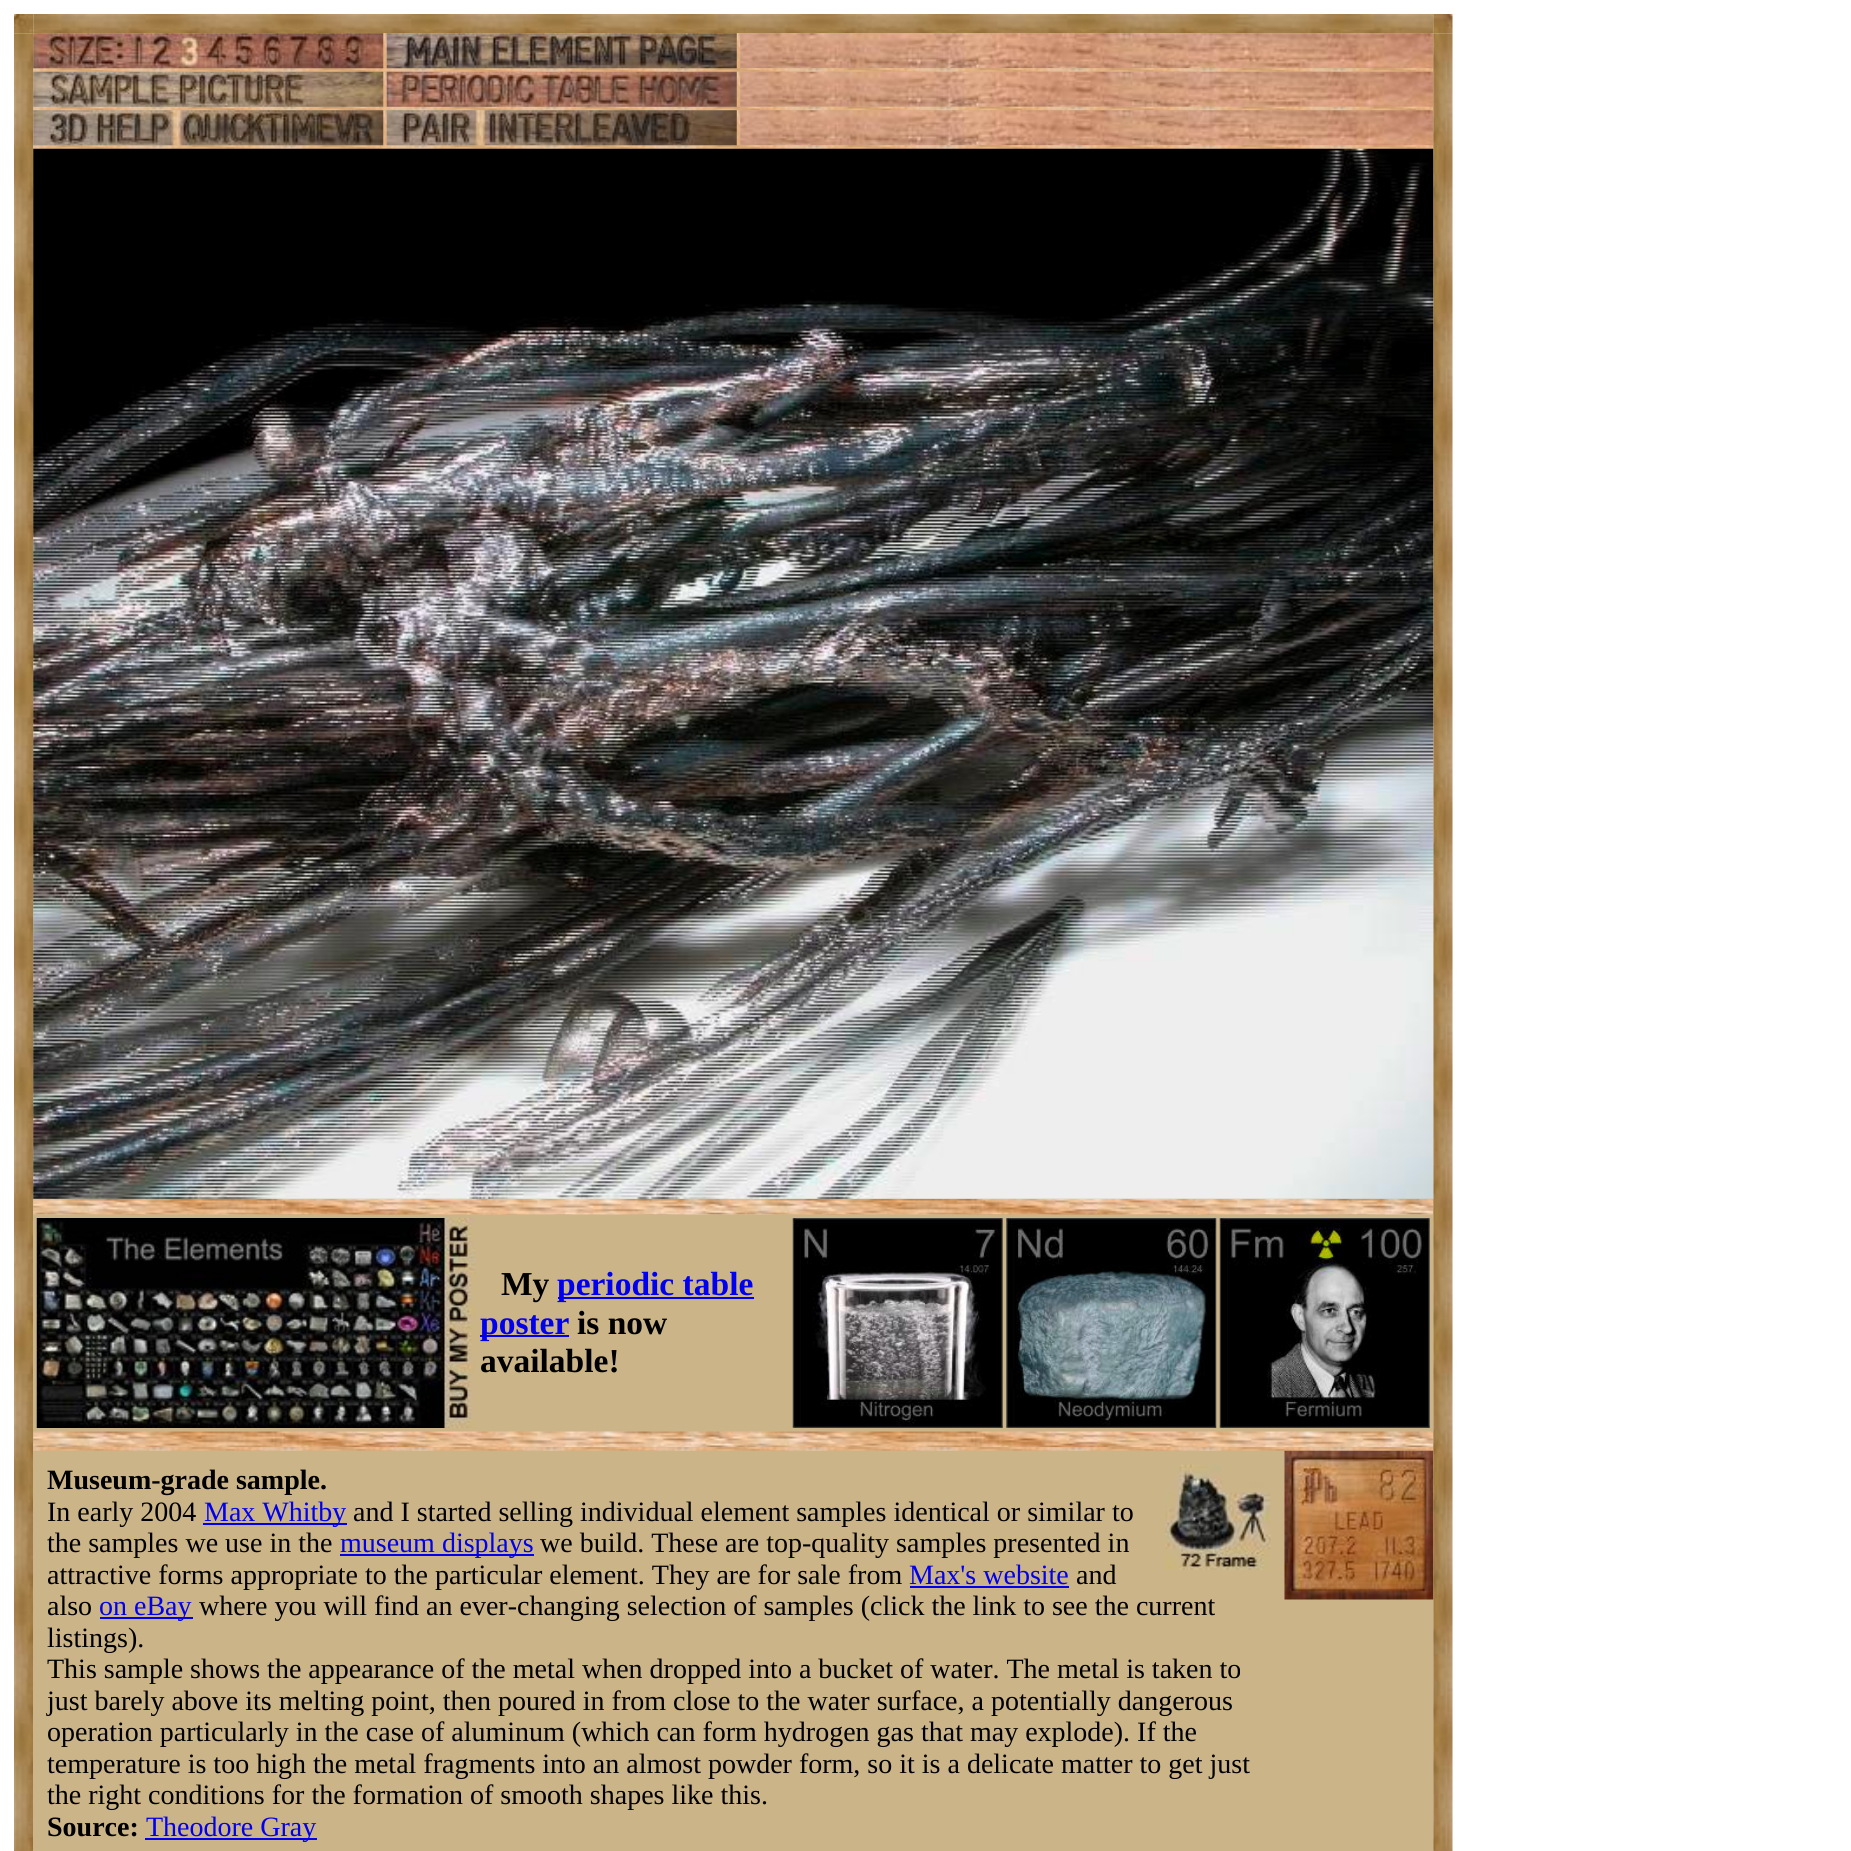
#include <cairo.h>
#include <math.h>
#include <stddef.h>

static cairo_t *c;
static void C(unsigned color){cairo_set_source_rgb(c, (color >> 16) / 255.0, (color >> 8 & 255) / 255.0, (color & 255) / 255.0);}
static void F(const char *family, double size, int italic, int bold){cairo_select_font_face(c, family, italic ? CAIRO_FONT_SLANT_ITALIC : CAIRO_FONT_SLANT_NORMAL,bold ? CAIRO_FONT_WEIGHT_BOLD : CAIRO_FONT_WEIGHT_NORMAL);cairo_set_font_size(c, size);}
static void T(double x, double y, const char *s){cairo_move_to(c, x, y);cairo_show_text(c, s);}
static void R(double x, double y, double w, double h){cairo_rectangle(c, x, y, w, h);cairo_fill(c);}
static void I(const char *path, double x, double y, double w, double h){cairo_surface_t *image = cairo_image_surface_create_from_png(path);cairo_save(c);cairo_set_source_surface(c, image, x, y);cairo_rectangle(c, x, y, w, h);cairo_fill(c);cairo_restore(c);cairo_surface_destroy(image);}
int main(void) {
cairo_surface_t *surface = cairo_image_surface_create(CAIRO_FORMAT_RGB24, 1851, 1851);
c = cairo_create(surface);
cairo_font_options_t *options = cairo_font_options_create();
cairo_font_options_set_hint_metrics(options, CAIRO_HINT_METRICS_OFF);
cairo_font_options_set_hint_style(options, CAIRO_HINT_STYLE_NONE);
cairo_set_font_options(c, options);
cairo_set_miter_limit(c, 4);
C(0xffffff);
cairo_paint(c);
I("2.png",33,14,1401,20);
I("4.png",14,33,19,1818);
C(0xcbb488);
R(33,33,1400,1818);
I("1.png",14,14,20,20);
I("8.png",736,33,5,36);
I("9.png",740,33,694,36);
I("6.png",383,33,4,36);
I("10.png",33,68,1401,4);
I("14.png",736,71,5,36);
I("15.png",740,71,694,36);
I("12.png",383,71,4,36);
I("16.png",33,106,1401,5);
I("20.png",736,110,5,36);
I("21.png",740,110,694,36);
I("18.png",383,110,4,36);
I("22.png",33,145,1401,4);
I("24.png",33,1198,1401,17);
I("29.png",33,1431,1401,17);
I("30.png",33,1447,1401,4);
I("33.png",1433,33,20,1818);
I("3.png",1433,14,20,20);
I("5.png",33,33,351,36);
I("7.png",386,33,351,36);
I("11.png",33,71,351,36);
I("13.png",386,71,351,36);
I("17.png",33,110,351,36);
I("19.png",386,110,351,36);
I("23.png",33,148,1401,1051);
I("25.png",36,1218,440,210);
F("Liberation Serif",33.5,0,1);
C(0x000000);
T(501,1295,"My");
C(0x0000ee);
R(558,1297,196,2);
T(557,1295,"periodic table");
R(480,1335,89,2);
T(480,1334,"poster");
C(0x000000);
T(577,1334,"is now");
T(480,1372,"available!");
I("26.png",792,1218,211,210);
I("27.png",1006,1218,211,210);
I("28.png",1219,1218,211,210);
F("Liberation Serif",28,0,1);
T(47,1489,"Museum-grade sample.");
I("31.png",1165,1464,106,106);
F("Liberation Serif",28,0,0);
T(47,1521,"In early 2004");
C(0x0000ee);
R(203,1523,144,2);
T(204,1521,"Max Whitby");
C(0x000000);
T(353,1521,"and I started selling individual element samples identical or similar to");
T(47,1552,"the samples we use in the");
C(0x0000ee);
R(340,1554,194,2);
T(340,1552,"museum displays");
C(0x000000);
T(540,1552,"we build. These are top-quality samples presented in");
T(47,1584,"attractive forms appropriate to the particular element. They are for sale from");
C(0x0000ee);
T(909,1584,"Max's website");
R(910,1586,159,2);
C(0x000000);
T(1076,1584,"and");
T(47,1615,"also");
C(0x0000ee);
R(100,1617,93,2);
T(99,1615,"on eBay");
C(0x000000);
T(199,1615,"where you will find an ever-changing selection of samples (click the link to see the current");
T(47,1647,"listings).");
T(47,1678,"This sample shows the appearance of the metal when dropped into a bucket of water. The metal is taken to");
T(47,1710,"just barely above its melting point, then poured in from close to the water surface, a potentially dangerous");
T(47,1741,"operation particularly in the case of aluminum (which can form hydrogen gas that may explode). If the");
T(47,1773,"temperature is too high the metal fragments into an almost powder form, so it is a delicate matter to get just");
T(47,1804,"the right conditions for the formation of smooth shapes like this.");
F("Liberation Serif",28,0,1);
T(47,1836,"Source:");
C(0x0000ee);
R(145,1838,172,2);
F("Liberation Serif",28,0,0);
T(146,1836,"Theodore Gray");
I("32.png",1284,1450,150,150);
cairo_surface_write_to_png(surface, "o.png");
cairo_font_options_destroy(options);
cairo_destroy(c);
cairo_surface_destroy(surface);
return 0;
}
